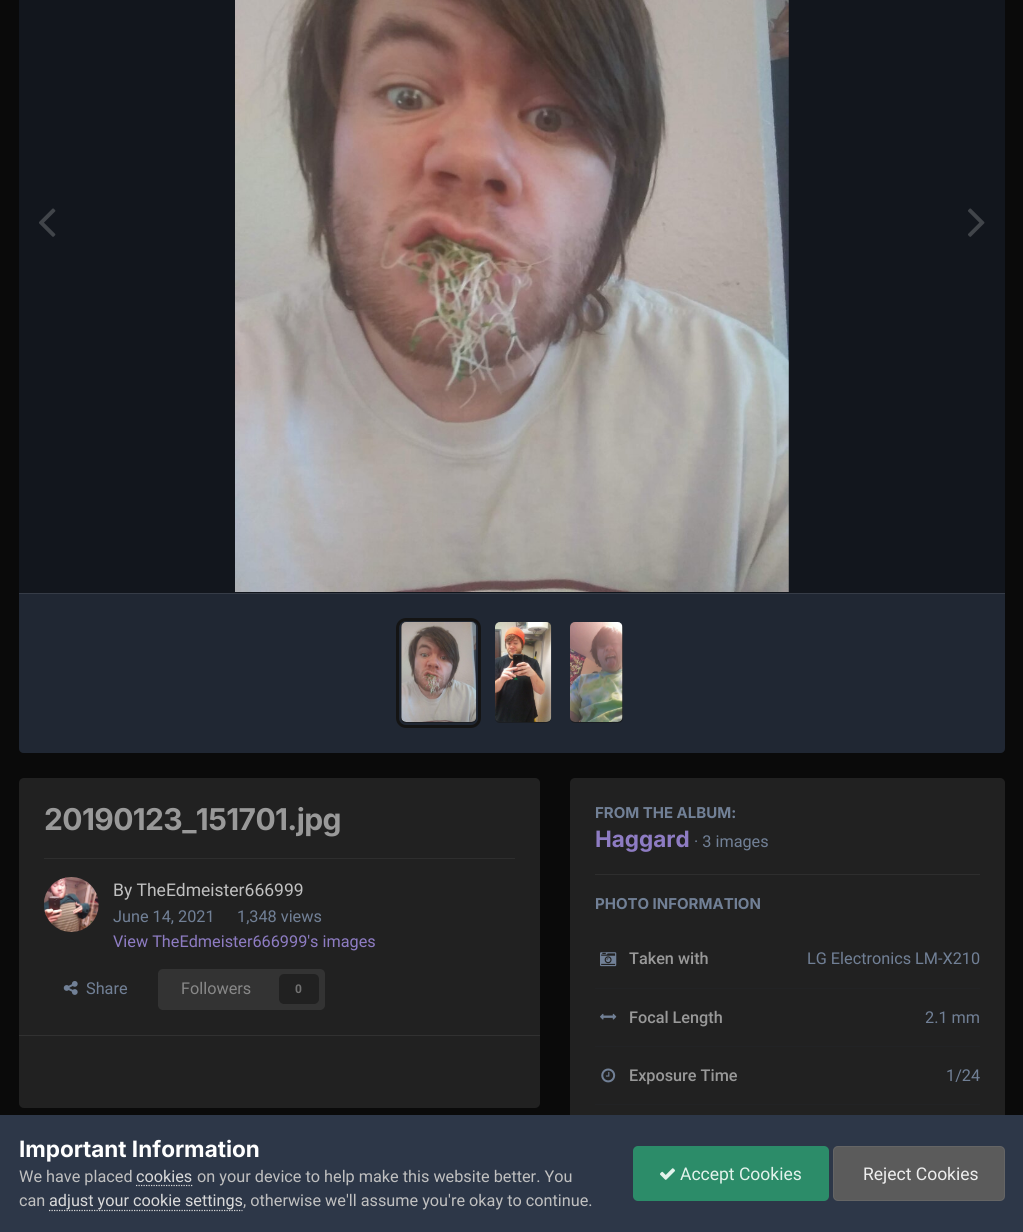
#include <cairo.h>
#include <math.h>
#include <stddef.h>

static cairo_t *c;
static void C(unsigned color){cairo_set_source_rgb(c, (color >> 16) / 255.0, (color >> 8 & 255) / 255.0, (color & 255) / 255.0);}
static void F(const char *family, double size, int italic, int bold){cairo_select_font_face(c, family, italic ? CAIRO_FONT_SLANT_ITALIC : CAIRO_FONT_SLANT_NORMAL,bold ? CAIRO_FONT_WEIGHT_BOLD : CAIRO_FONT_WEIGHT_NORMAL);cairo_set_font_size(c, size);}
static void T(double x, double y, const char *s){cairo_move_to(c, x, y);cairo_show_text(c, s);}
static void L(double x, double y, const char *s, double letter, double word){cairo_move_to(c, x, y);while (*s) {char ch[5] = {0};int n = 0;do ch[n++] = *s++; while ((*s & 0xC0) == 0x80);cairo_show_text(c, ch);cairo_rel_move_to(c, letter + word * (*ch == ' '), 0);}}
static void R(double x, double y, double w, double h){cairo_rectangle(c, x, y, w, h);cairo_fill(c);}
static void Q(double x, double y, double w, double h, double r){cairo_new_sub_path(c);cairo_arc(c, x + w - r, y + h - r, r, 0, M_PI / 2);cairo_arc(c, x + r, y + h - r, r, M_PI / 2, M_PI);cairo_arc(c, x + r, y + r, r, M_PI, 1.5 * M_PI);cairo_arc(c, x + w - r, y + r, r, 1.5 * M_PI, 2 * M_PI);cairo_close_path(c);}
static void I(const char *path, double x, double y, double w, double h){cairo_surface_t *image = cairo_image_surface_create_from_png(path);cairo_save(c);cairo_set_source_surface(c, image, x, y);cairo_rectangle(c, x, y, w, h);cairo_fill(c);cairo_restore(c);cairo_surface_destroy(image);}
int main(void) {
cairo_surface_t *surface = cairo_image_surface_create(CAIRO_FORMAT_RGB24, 1023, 1232);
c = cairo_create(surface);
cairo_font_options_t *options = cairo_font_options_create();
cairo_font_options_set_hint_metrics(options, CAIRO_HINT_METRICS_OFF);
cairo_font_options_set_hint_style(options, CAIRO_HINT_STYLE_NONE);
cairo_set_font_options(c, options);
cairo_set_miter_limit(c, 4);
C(0x0a0a0a);
cairo_paint(c);
C(0x12161d);
R(19,0,986,593);
I("1.png",235,0,554,592);
I("2.png",39,208,17,29);
I("3.png",968,208,17,29);
C(0x2d3748);
cairo_new_path(c);
cairo_move_to(c,19,593);
cairo_line_to(c,1005,593);
cairo_line_to(c,1005,748);
cairo_curve_to(c,1005,751,1003,753,1000,753);
cairo_line_to(c,24,753);
cairo_curve_to(c,21,753,19,751,19,748);
cairo_close_path(c);
cairo_fill(c);
cairo_set_source_rgba(c,0,0,0,0.3);
cairo_new_path(c);
cairo_move_to(c,19,593);
cairo_line_to(c,1005,593);
cairo_line_to(c,1005,748);
cairo_curve_to(c,1005,751,1003,753,1000,753);
cairo_line_to(c,24,753);
cairo_curve_to(c,21,753,19,751,19,748);
cairo_close_path(c);
cairo_fill(c);
C(0x363c47);
R(19,593,986,1);
C(0x141414);
Q(401,623,75,100,5);
cairo_fill(c);
cairo_set_source_rgba(c,0.176,0.216,0.282,0.3);
Q(401,623,75,100,5);
cairo_fill(c);
Q(397.5,619.5,82,107,8.5);
C(0x141414);
cairo_set_line_width(c,3);
cairo_stroke(c);
I("4.png",401,622,76,100);
Q(495,623,56,100,5);
cairo_fill(c);
cairo_set_source_rgba(c,0.176,0.216,0.282,0.3);
Q(495,623,56,100,5);
cairo_fill(c);
I("5.png",495,622,57,100);
C(0x141414);
Q(570,623,53,100,5);
cairo_fill(c);
cairo_set_source_rgba(c,0.176,0.216,0.282,0.3);
Q(570,623,53,100,5);
cairo_fill(c);
I("6.png",570,622,53,100);
C(0x212121);
Q(19,778,521,330,5);
cairo_fill(c);
F("Inter",30,0,1);
C(0x999999);
L(44,830,"20190123_151701.jpg",-.6,0);
C(0x2e2e2e);
R(44,858,471,1);
I("7.png",44,877,55,55);
F("Roboto",17.5,0,0);
C(0xc0c0c0);
T(113,896,"By TheEdmeister666999");
F("Roboto",16.25,0,0);
C(0x718096);
T(113,922,"June 14, 2021");
T(237,922,"1,348 views");
C(0x8e7cc3);
T(113,947,"View TheEdmeister666999's images");
I("8.png",63,981,15,14);
C(0x718096);
T(86,994,"Share");
C(0x333333);
Q(158,969,167,41,5);
cairo_fill(c);
C(0x888888);
T(181,994,"Followers");
C(0x212121);
Q(279,974,40,30,5);
cairo_fill(c);
F("Roboto",12,0,1);
C(0x717171);
T(295,993,"0");
C(0x313131);
R(19,1035,521,1);
C(0x212121);
Q(570,778,435,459,5);
cairo_fill(c);
F("Inter",15,0,1);
C(0x718096);
T(595,818,"FROM THE ALBUM:");
F("Inter",22.5,0,1);
C(0x8e7cc3);
T(595,847,"Haggard");
F("Roboto",16.25,0,0);
C(0x718096);
T(694,847,"· 3 images");
C(0x2e2e2e);
R(595,874,385,1);
F("Inter",15,0,1);
C(0x718096);
T(595,909,"PHOTO INFORMATION");
C(0x222325);
R(595,988,385,1);
I("9.png",600,952,17,15);
F("Roboto Medium",16.25,0,0);
C(0x999999);
T(629,964,"Taken with");
F("Roboto",16.25,0,0);
C(0x718096);
T(807,964,"LG Electronics LM-X210");
C(0x222325);
R(595,1046,385,1);
I("10.png",600,1013,17,7);
F("Roboto Medium",16.25,0,0);
C(0x999999);
T(629,1023,"Focal Length");
F("Roboto",16.25,0,0);
C(0x718096);
T(925,1023,"2.1 mm");
C(0x222325);
R(595,1104,385,1);
I("11.png",601,1068,15,15);
F("Roboto Medium",16.25,0,0);
C(0x999999);
T(629,1081,"Exposure Time");
F("Roboto",16.25,0,0);
C(0x718096);
T(946,1081,"1/24");
C(0x2d3748);
R(0,1115,1023,117);
F("Inter",22.5,0,1);
C(0xffffff);
T(19,1157,"Important Information");
F("Roboto",16.25,0,0);
C(0xc0c0c0);
T(19,1182,"We have placed");
C(0xdadada);
T(136,1182,"cookies");
cairo_new_path(c);
cairo_move_to(c,136,1185.5);
cairo_line_to(c,192.5,1185.5);
cairo_set_line_width(c,1.2);
cairo_set_dash(c,(double[]){1.25,1.25},2,0);
cairo_stroke(c);
C(0xc0c0c0);
T(197,1182,"on your device to help make this website better. You");
T(19,1206,"can");
cairo_new_path(c);
cairo_move_to(c,49,1210.5);
cairo_line_to(c,242.5,1210.5);
C(0xdadada);
cairo_stroke(c);
T(49,1206,"adjust your cookie settings");
C(0xc0c0c0);
T(243,1206,", otherwise we'll assume you're okay to continue.");
C(0x2c8c69);
Q(633,1146,196,55,5);
cairo_fill(c);
I("12.png",660,1168,15,12);
F("Roboto",17.5,0,0);
C(0xe3f3ec);
T(680,1180,"Accept Cookies");
C(0x5b5b5b);
Q(833,1146,172,55,5);
cairo_fill(c);
Q(833.5,1146.5,171,54,4.5);
cairo_set_source_rgba(c,0.933,0.933,0.933,0.07);
cairo_set_line_width(c,1);
cairo_set_dash(c,NULL,0,0);
cairo_stroke(c);
C(0xeeeeee);
T(863,1180,"Reject Cookies");
cairo_surface_write_to_png(surface, "o.png");
cairo_font_options_destroy(options);
cairo_destroy(c);
cairo_surface_destroy(surface);
return 0;
}
